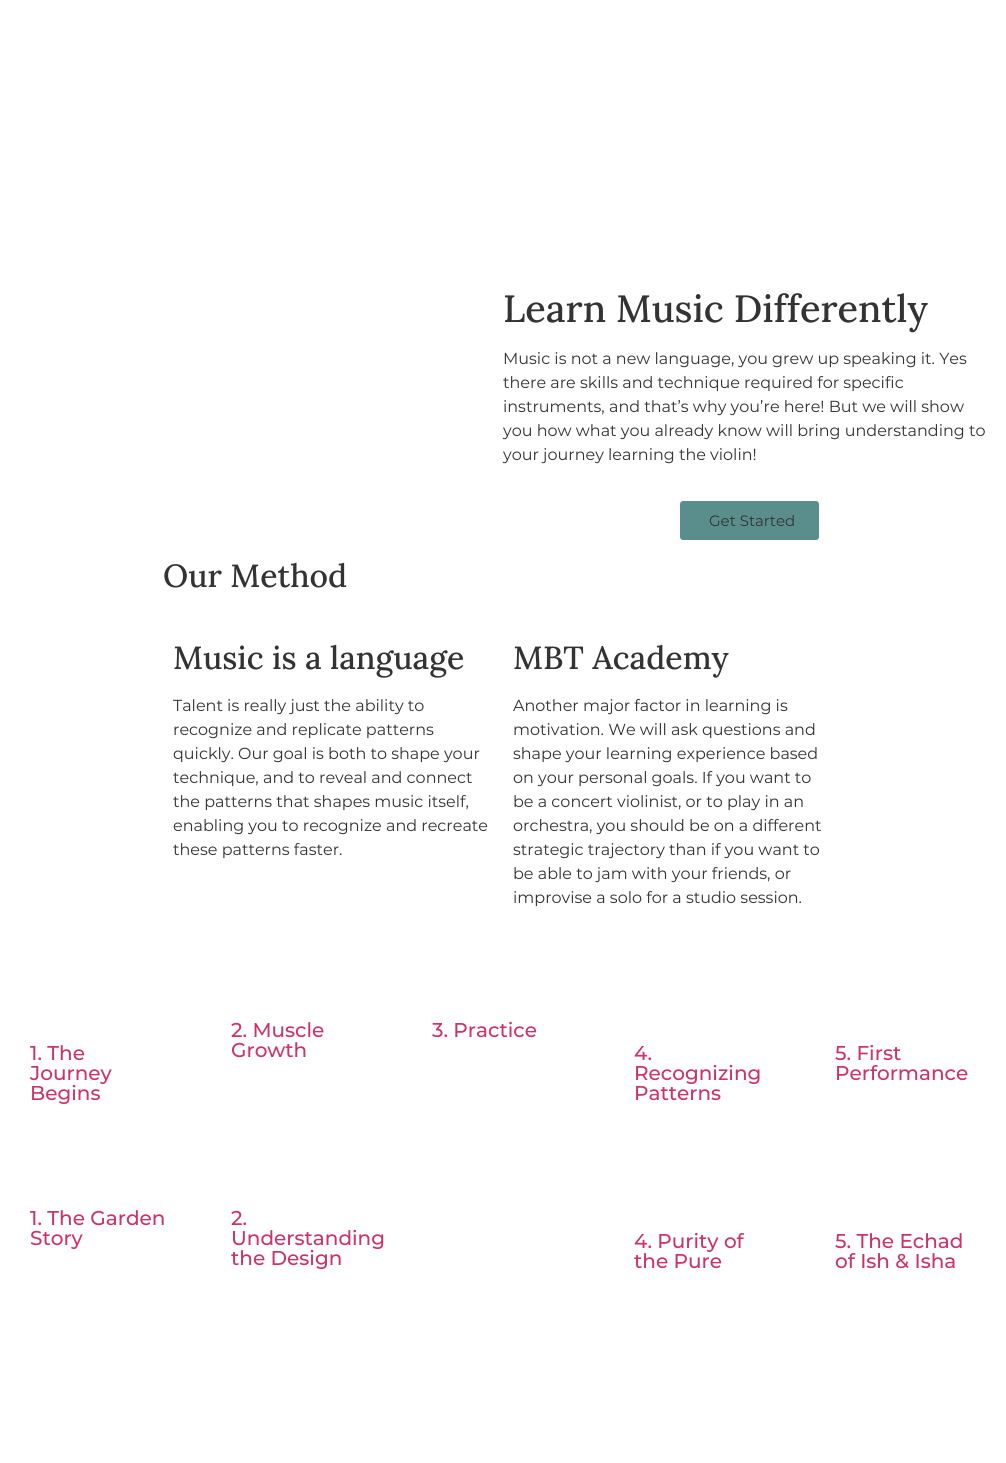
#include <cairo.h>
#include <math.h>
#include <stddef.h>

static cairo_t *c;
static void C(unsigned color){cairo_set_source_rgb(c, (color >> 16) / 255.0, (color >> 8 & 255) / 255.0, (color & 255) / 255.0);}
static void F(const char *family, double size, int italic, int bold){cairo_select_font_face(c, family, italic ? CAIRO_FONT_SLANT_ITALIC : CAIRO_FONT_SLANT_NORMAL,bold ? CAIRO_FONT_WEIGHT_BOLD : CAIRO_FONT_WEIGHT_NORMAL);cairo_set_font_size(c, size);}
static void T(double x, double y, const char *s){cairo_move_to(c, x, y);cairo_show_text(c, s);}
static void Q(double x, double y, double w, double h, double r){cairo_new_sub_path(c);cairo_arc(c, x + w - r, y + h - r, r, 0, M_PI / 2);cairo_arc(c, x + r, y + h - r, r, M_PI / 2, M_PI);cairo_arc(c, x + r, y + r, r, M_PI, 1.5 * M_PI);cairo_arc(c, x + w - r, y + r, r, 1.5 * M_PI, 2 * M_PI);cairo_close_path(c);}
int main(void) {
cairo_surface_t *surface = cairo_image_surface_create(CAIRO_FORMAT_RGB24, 1006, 1463);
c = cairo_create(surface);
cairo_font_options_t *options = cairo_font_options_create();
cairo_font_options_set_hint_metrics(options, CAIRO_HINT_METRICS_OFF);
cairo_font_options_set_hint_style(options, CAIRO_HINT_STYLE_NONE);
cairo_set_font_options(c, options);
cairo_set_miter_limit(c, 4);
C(0xffffff);
cairo_paint(c);
F("Lora Medium",38,0,0);
C(0x333333);
T(503,322,"Learn Music Differently");
F("Montserrat",16,0,0);
T(503,364,"Music is not a new language, you grew up speaking it. Yes");
T(503,388,"there are skills and technique required for specific");
T(503,412,"instruments, and that’s why you’re here! But we will show");
T(503,436,"you how what you already know will bring understanding to");
T(503,460,"your journey learning the violin!");
C(0x598e8d);
Q(680,501,139,39,3);
cairo_fill(c);
F("Montserrat",15,0,0);
C(0x333333);
T(709,526,"Get Started");
F("Lora Medium",32,0,0);
T(163,587,"Our Method");
T(173,669,"Music is a language");
F("Montserrat",16,0,0);
T(173,711,"Talent is really just the ability to");
T(173,735,"recognize and replicate patterns");
T(173,759,"quickly. Our goal is both to shape your");
T(173,783,"technique, and to reveal and connect");
T(173,807,"the patterns that shapes music itself,");
T(173,831,"enabling you to recognize and recreate");
T(173,855,"these patterns faster.");
F("Lora Medium",32,0,0);
T(513,669,"MBT Academy");
F("Montserrat",16,0,0);
T(513,711,"Another major factor in learning is");
T(513,735,"motivation. We will ask questions and");
T(513,759,"shape your learning experience based");
T(513,783,"on your personal goals. If you want to");
T(513,807,"be a concert violinist, or to play in an");
T(513,831,"orchestra, you should be on a different");
T(513,855,"strategic trajectory than if you want to");
T(513,879,"be able to jam with your friends, or");
T(513,903,"improvise a solo for a studio session.");
F("Montserrat Medium",20,0,0);
C(0xcc3366);
T(231,1037,"2. Muscle");
T(231,1057,"Growth");
T(432,1037,"3. Practice");
T(30,1060,"1. The");
T(30,1080,"Journey");
T(30,1100,"Begins");
T(634,1060,"4.");
T(634,1080,"Recognizing");
T(634,1100,"Patterns");
T(835,1060,"5. First");
T(835,1080,"Performance");
T(30,1225,"1. The Garden");
T(30,1245,"Story");
T(231,1225,"2.");
T(231,1245,"Understanding");
T(231,1265,"the Design");
T(634,1248,"4. Purity of");
T(634,1268,"the Pure");
T(835,1248,"5. The Echad");
T(835,1268,"of Ish & Isha");
cairo_surface_write_to_png(surface, "o.png");
cairo_font_options_destroy(options);
cairo_destroy(c);
cairo_surface_destroy(surface);
return 0;
}
